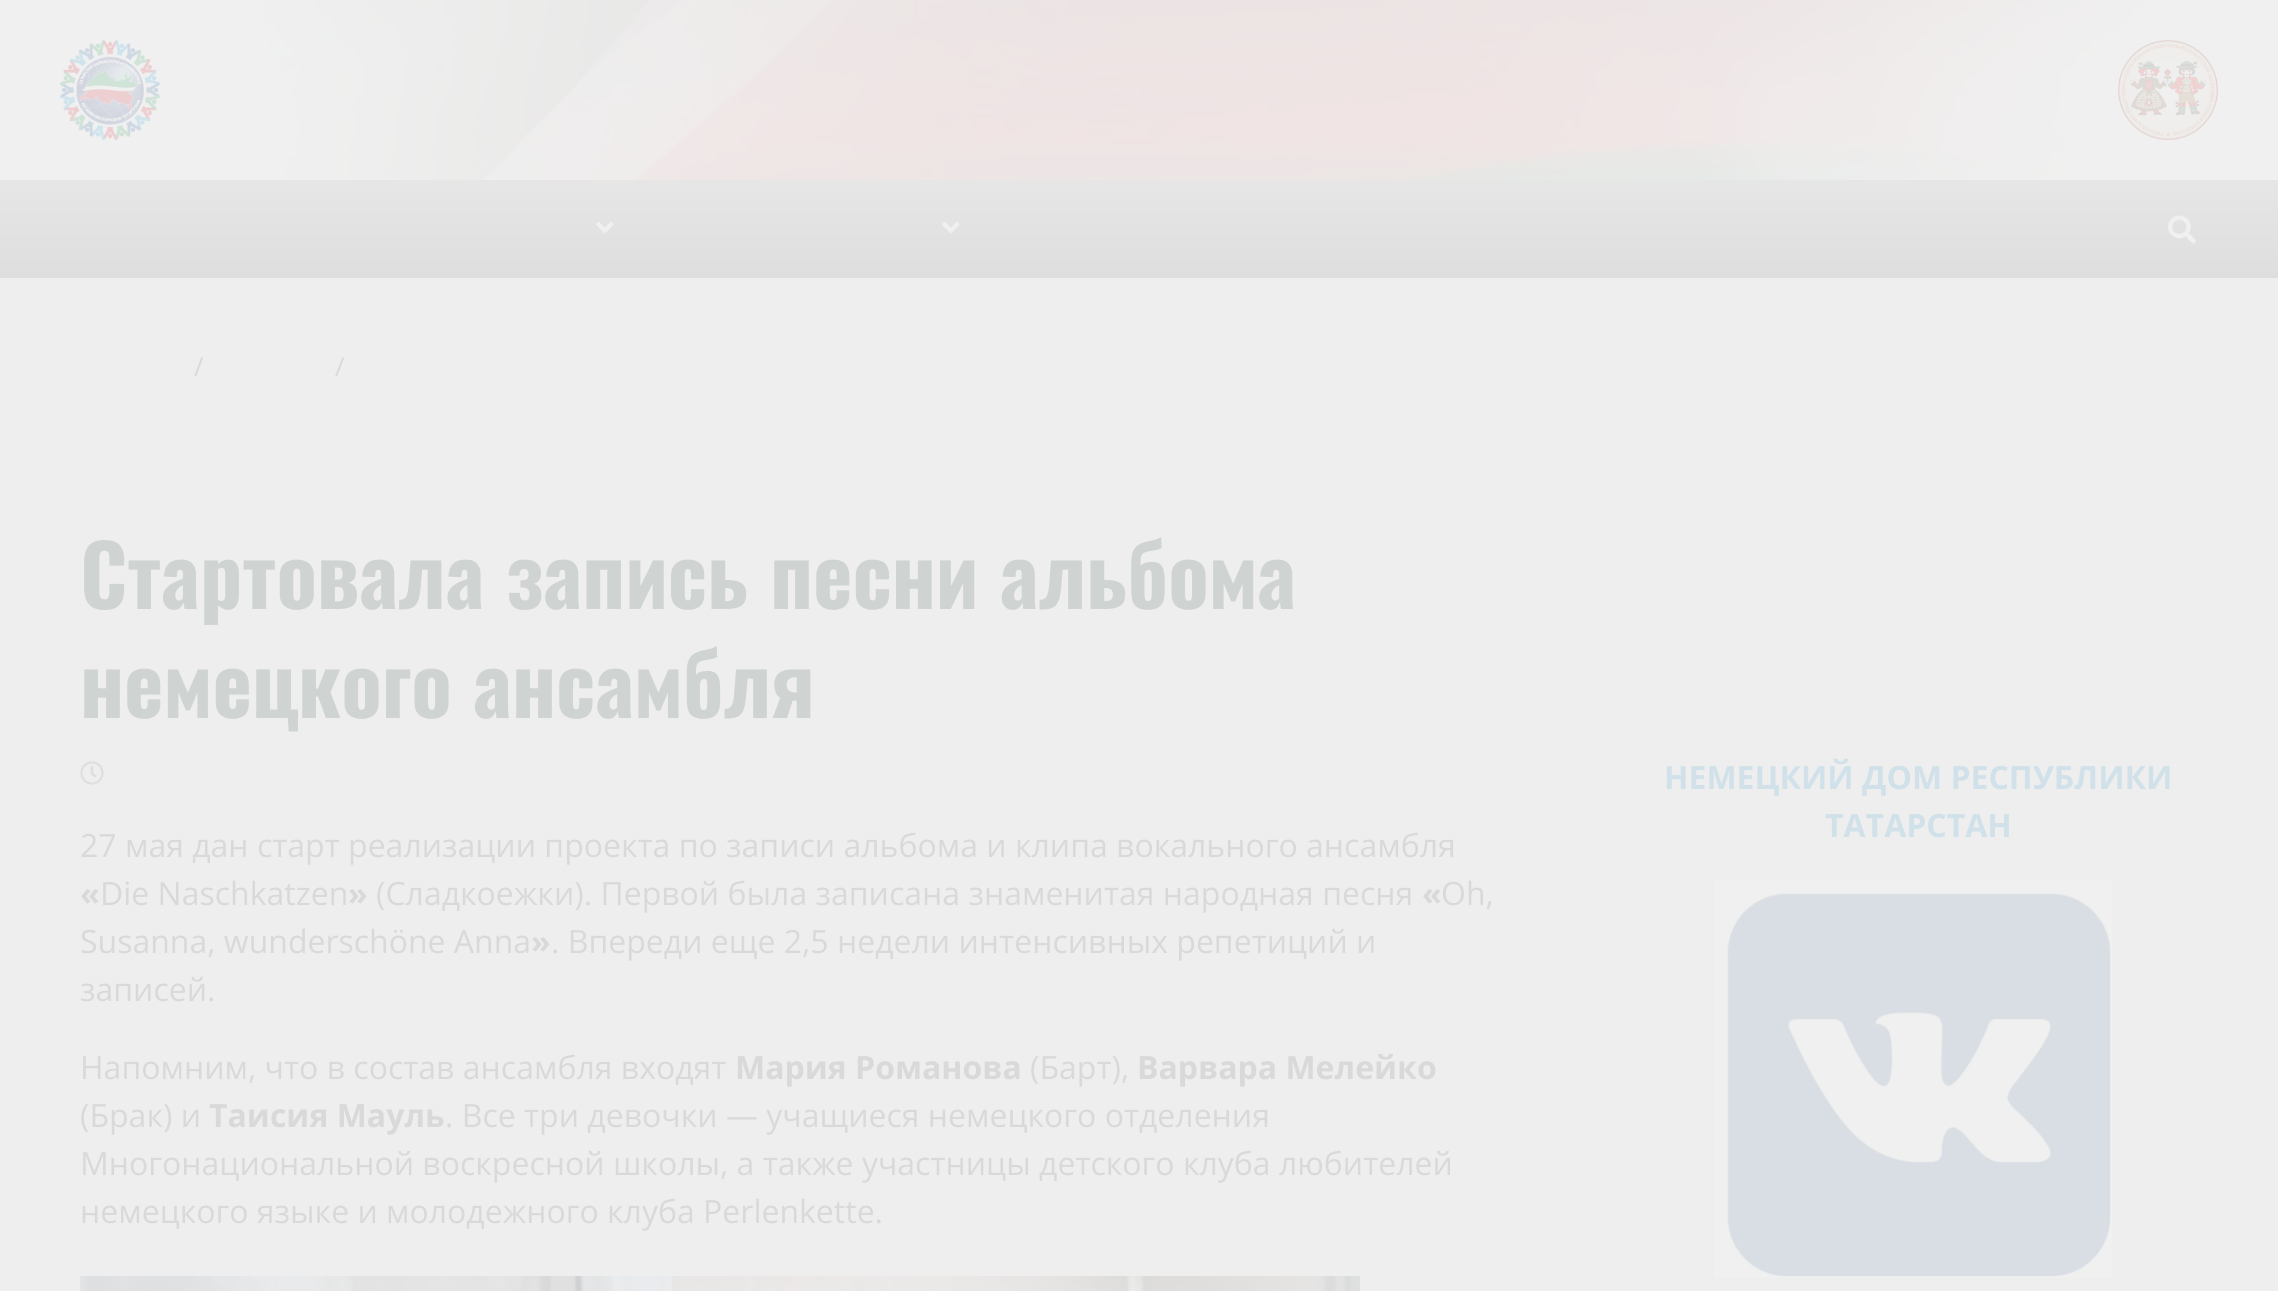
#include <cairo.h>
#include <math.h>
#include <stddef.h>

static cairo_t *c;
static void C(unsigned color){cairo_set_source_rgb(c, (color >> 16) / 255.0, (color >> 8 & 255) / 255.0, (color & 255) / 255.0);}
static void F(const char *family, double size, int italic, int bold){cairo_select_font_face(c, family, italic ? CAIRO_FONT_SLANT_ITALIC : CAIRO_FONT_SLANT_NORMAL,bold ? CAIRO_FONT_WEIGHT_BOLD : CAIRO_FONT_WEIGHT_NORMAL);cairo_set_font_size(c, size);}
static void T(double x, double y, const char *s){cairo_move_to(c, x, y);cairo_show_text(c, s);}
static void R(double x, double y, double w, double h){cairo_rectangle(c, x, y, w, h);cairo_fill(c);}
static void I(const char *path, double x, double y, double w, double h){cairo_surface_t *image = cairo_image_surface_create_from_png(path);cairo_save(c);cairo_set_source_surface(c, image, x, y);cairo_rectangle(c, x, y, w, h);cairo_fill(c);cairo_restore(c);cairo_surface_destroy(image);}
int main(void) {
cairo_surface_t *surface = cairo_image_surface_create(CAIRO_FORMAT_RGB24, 2278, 1291);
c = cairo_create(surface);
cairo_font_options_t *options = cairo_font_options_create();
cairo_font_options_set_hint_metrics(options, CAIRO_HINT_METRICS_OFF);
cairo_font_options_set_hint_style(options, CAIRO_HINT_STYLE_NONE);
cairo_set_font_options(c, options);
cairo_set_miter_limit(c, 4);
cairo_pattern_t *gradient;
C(0xeeeeee);
cairo_paint(c);
I("1.png",0,0,2278,180);
I("2.png",60,40,100,100);
I("3.png",2118,40,100,100);
gradient = cairo_pattern_create_linear(1139,180,1139,278);
cairo_pattern_add_color_stop_rgba(gradient,0,0.902,0.902,0.902,1);
cairo_pattern_add_color_stop_rgba(gradient,1,0.871,0.871,0.871,1);
cairo_set_source(c,gradient);
cairo_pattern_destroy(gradient);
R(0,180,2278,98);
I("4.png",596,221,18,13);
I("4.png",942,221,18,13);
I("5.png",2168,215,28,29);
F("Open Sans",26,0,0);
C(0xd9d9d9);
T(194,376,"/");
T(335,376,"/");
F("Oswald",84,0,1);
C(0xcfd3d1);
T(80,609,"Стартовала запись песни альбома");
T(80,718,"немецкого ансамбля");
I("6.png",80,761,24,24);
F("Open Sans",32,0,0);
C(0xd9d9d9);
T(80,857,"27 мая дан старт реализации проекта по записи альбома и клипа вокального ансамбля");
F("Open Sans",32,0,1);
T(80,905,"«");
F("Open Sans",32,0,0);
T(100,905,"Die Naschkatzen");
F("Open Sans",32,0,1);
T(348,905,"»");
F("Open Sans",32,0,0);
T(376,905,"(Сладкоежки). Первой была записана знаменитая народная песня");
F("Open Sans",32,0,1);
T(1422,905,"«");
F("Open Sans",32,0,0);
T(1441,905,"Oh,");
T(80,953,"Susanna, wunderschöne Anna");
F("Open Sans",32,0,1);
T(531,953,"»");
F("Open Sans",32,0,0);
T(551,953,". Впереди еще 2,5 недели интенсивных репетиций и");
T(80,1001,"записей.");
T(80,1079,"Напомним, что в состав ансамбля входят");
F("Open Sans",32,0,1);
T(735,1079,"Мария Романова");
F("Open Sans",32,0,0);
T(1030,1079,"(Барт),");
F("Open Sans",32,0,1);
T(1137,1079,"Варвара Мелейко");
F("Open Sans",32,0,0);
T(80,1127,"(Брак) и");
F("Open Sans",32,0,1);
T(209,1127,"Таисия Мауль");
F("Open Sans",32,0,0);
T(445,1127,". Все три девочки — учащиеся немецкого отделения");
T(80,1175,"Многонациональной воскресной школы, а также участницы детского клуба любителей");
T(80,1223,"немецкого языке и молодежного клуба Perlenkette.");
I("7.png",80,1276,1280,15);
F("Open Sans",32,0,1);
C(0xd0e1e9);
T(1664,789,"НЕМЕЦКИЙ ДОМ РЕСПУБЛИКИ");
T(1825,837,"ТАТАРСТАН");
I("8.png",1714,880,398,398);
cairo_surface_write_to_png(surface, "o.png");
cairo_font_options_destroy(options);
cairo_destroy(c);
cairo_surface_destroy(surface);
return 0;
}
